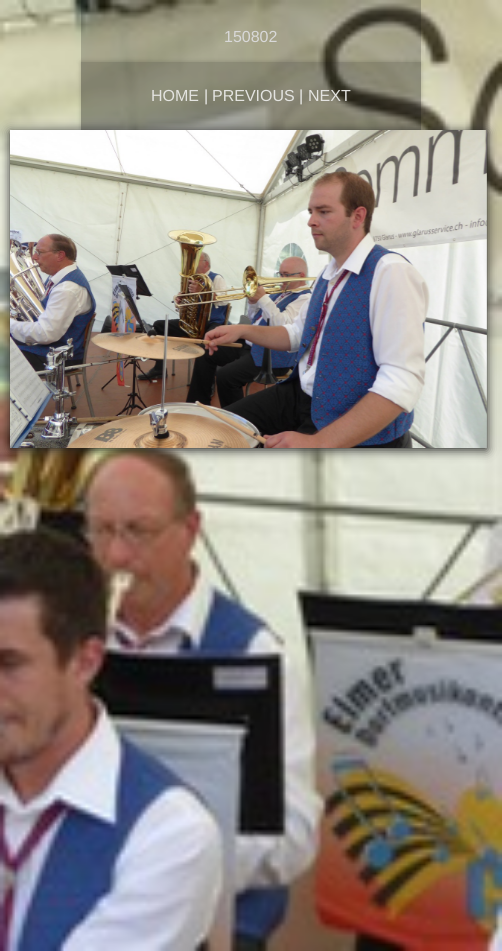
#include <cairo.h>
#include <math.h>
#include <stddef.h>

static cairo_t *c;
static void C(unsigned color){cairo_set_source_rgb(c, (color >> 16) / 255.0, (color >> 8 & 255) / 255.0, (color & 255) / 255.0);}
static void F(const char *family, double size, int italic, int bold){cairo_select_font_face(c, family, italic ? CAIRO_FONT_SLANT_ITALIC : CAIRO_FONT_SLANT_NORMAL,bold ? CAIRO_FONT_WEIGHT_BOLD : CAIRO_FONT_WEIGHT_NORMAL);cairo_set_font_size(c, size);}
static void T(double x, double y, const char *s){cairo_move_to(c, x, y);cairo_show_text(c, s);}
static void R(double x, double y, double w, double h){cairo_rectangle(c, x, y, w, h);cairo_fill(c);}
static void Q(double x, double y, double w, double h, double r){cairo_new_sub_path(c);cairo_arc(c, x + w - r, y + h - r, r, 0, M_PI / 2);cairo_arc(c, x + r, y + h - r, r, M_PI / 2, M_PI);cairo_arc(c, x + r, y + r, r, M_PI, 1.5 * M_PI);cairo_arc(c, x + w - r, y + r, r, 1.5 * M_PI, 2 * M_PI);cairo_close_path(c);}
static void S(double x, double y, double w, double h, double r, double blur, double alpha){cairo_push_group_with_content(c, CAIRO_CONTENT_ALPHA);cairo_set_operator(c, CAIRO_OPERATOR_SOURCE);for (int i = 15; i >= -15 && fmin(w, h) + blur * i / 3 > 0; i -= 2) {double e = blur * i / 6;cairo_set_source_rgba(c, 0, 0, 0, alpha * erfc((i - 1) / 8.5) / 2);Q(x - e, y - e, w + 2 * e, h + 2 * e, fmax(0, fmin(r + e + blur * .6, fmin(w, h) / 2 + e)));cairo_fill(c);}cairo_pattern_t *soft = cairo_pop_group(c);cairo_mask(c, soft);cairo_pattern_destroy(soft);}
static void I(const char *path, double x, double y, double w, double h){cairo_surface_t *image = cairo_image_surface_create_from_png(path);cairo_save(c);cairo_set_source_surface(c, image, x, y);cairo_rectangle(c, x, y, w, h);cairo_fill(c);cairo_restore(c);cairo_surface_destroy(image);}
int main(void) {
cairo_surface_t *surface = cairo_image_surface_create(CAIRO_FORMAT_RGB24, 502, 951);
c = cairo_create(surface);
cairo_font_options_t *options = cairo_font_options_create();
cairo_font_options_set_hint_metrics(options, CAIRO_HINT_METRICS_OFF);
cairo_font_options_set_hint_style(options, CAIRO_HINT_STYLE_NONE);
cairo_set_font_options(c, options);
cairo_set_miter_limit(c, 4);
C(0xffffff);
cairo_paint(c);
I("1.png",0,0,502,951);
cairo_set_source_rgba(c,0.055,0.055,0.055,0.22);
R(81,0,340,130);
F("Liberation Sans",16,0,0);
C(0xd8d8d8);
T(224,42,"150802");
cairo_save(c);
cairo_set_fill_rule(c,CAIRO_FILL_RULE_EVEN_ODD);
cairo_new_path(c);
cairo_move_to(c,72,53);
cairo_line_to(c,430,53);
cairo_line_to(c,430,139);
cairo_line_to(c,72,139);
cairo_close_path(c);
cairo_move_to(c,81,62);
cairo_line_to(c,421,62);
cairo_line_to(c,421,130);
cairo_line_to(c,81,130);
cairo_close_path(c);
cairo_clip(c);
C(0x000000);
S(81,62,340,68,0,2.5,.21);
cairo_restore(c);
cairo_set_source_rgba(c,0.043,0.043,0.043,0.18);
R(81,62,340,68);
C(0xe3e3e0);
T(151,101,"HOME");
C(0xececea);
T(204,101,"|");
C(0xe3e3e0);
T(212,101,"PREVIOUS");
C(0xececea);
T(299,101,"|");
C(0xe3e3e0);
T(308,101,"NEXT");
C(0x232323);
S(10,132,477,318,0,5.5,1);
I("2.png",10,130,477,318);
cairo_surface_write_to_png(surface, "o.png");
cairo_font_options_destroy(options);
cairo_destroy(c);
cairo_surface_destroy(surface);
return 0;
}
